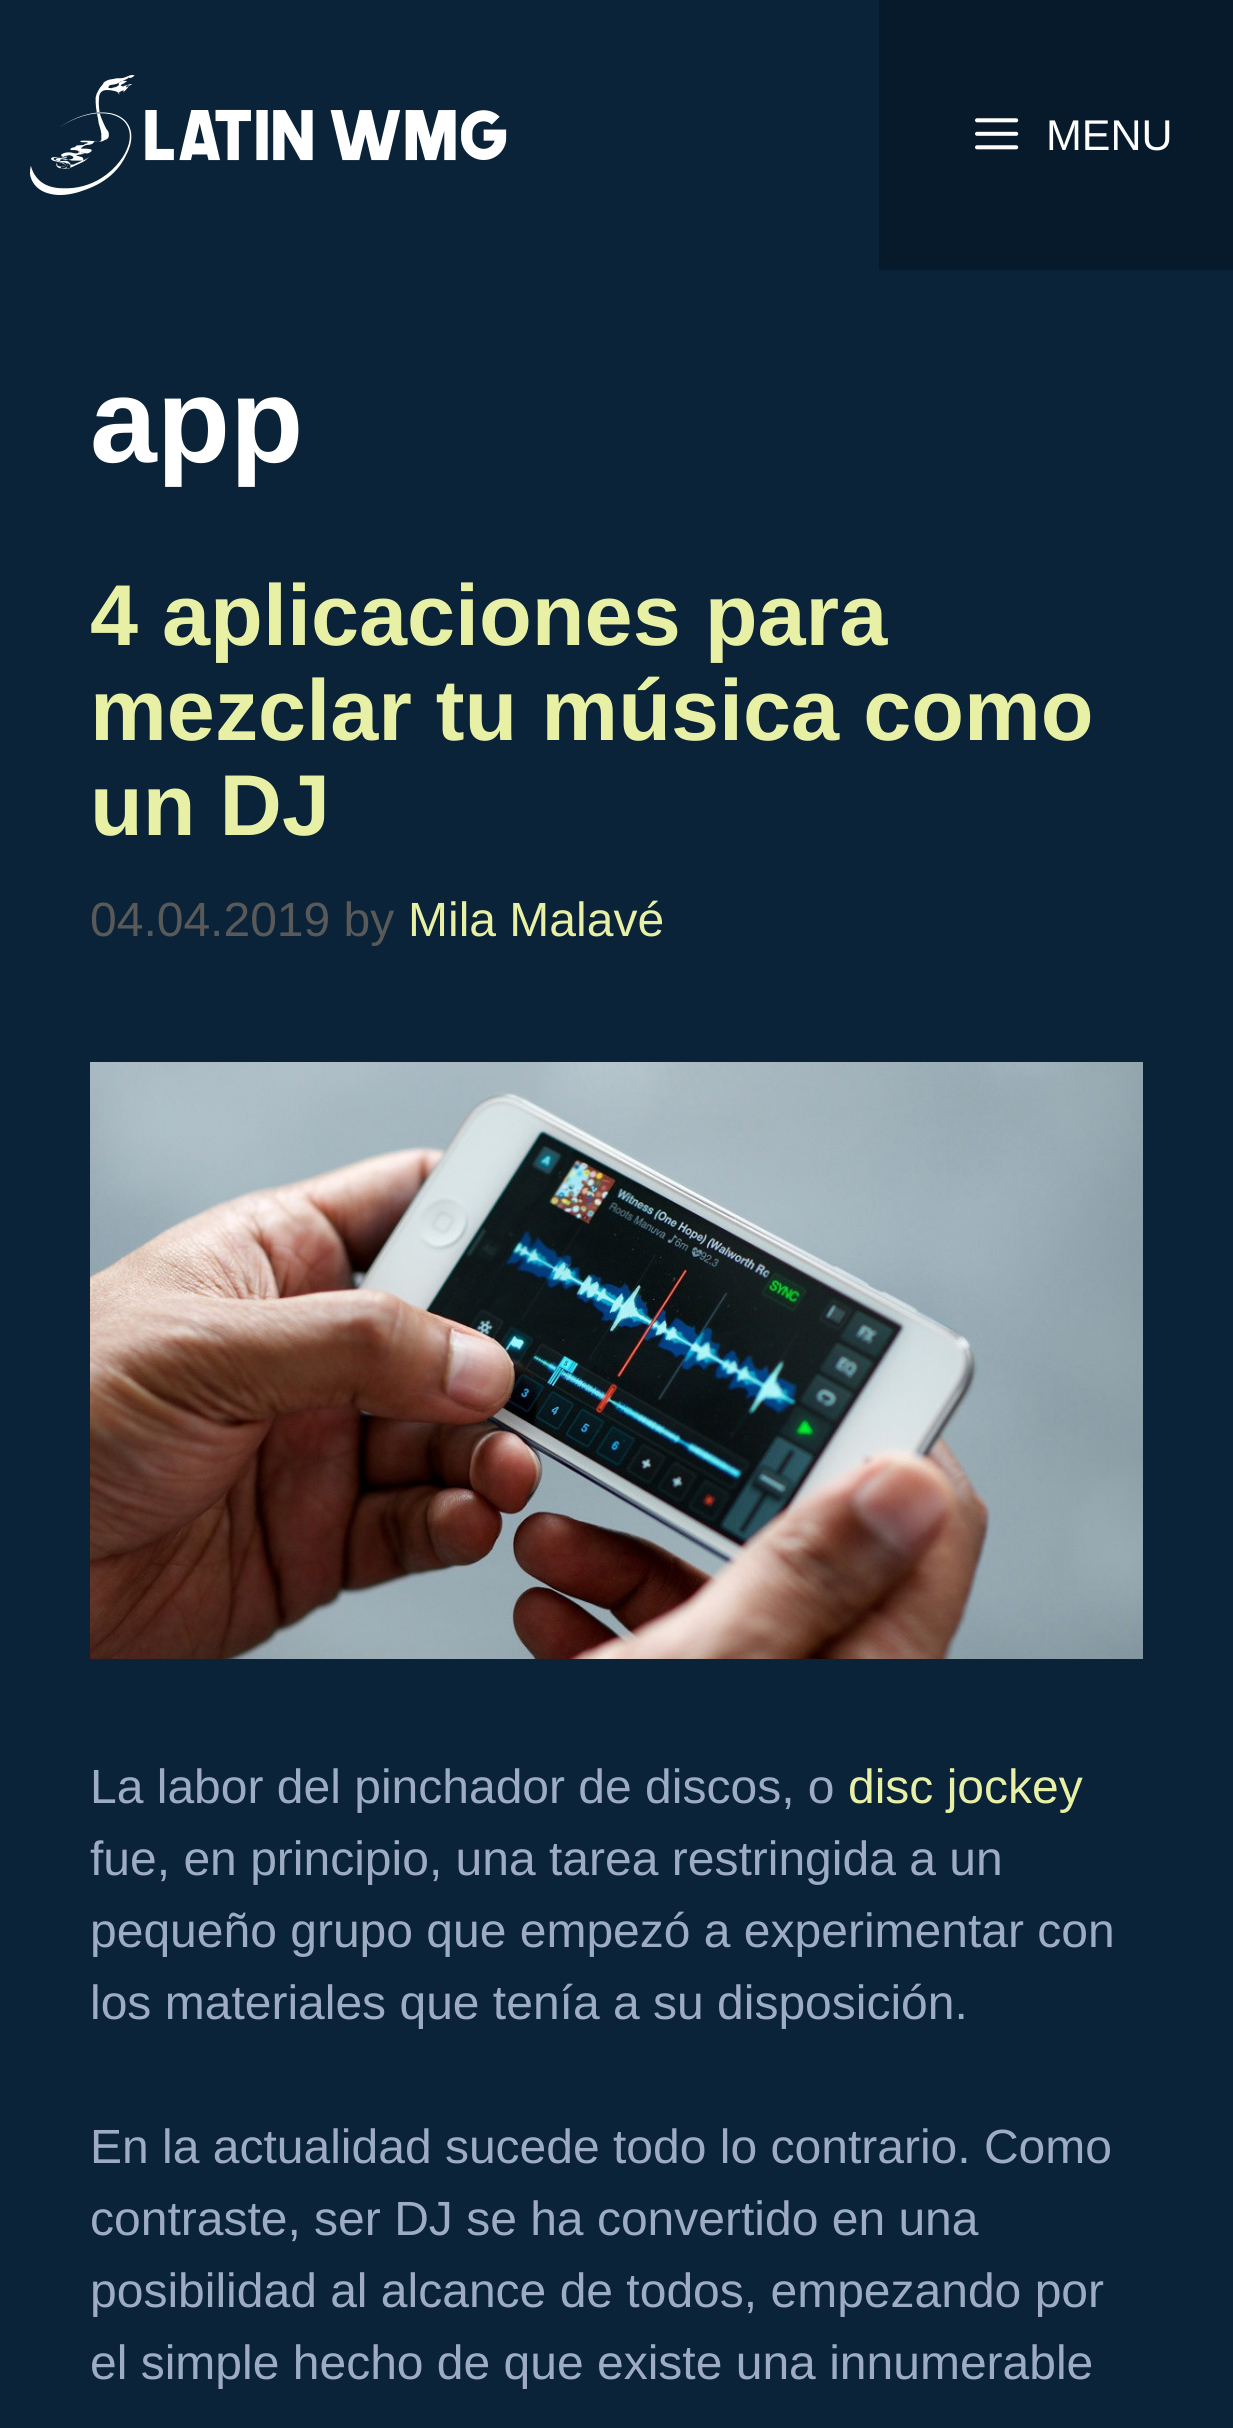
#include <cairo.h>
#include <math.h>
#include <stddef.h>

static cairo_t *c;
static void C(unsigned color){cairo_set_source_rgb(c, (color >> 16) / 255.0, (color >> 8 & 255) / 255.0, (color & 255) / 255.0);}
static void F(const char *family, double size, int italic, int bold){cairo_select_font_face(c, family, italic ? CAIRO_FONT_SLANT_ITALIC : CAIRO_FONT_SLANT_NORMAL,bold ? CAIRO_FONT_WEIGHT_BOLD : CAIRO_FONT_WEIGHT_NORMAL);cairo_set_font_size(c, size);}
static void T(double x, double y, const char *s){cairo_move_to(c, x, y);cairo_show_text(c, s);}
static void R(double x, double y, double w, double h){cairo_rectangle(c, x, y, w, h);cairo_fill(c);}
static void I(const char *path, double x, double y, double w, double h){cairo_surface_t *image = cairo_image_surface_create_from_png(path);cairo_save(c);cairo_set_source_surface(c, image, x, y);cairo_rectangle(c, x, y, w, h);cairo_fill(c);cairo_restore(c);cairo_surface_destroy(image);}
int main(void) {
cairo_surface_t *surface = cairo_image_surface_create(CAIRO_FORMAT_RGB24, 1233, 2428);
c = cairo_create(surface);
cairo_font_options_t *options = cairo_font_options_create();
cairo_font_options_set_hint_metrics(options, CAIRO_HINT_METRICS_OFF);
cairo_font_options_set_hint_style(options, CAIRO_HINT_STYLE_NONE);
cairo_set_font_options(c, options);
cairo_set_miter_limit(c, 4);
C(0x0a2338);
cairo_paint(c);
I("1.png",30,75,477,120);
C(0x061a2b);
R(879,0,354,270);
I("2.png",975,118,44,32);
F("Liberation Sans",43,0,0);
C(0xffffff);
T(1046,150,"MENU");
F("Liberation Sans",120,0,1);
T(90,462,"app");
F("Liberation Sans",86.4,0,1);
C(0xe8f0a5);
T(90,645,"4 aplicaciones para");
T(90,740,"mezclar tu música como");
T(90,835,"un DJ");
F("Liberation Sans",48,0,0);
C(0x595959);
T(90,936,"04.04.2019 by");
C(0xe8f0a5);
T(408,936,"Mila Malavé");
I("3.png",90,1062,1053,597);
C(0x9dacc3);
T(90,1803,"La labor del pinchador de discos, o");
C(0xe8f0a5);
T(848,1803,"disc jockey");
C(0x9dacc3);
T(90,1875,"fue, en principio, una tarea restringida a un");
T(90,1947,"pequeño grupo que empezó a experimentar con");
T(90,2019,"los materiales que tenía a su disposición.");
T(90,2163,"En la actualidad sucede todo lo contrario. Como");
T(90,2235,"contraste, ser DJ se ha convertido en una");
T(90,2307,"posibilidad al alcance de todos, empezando por");
T(90,2379,"el simple hecho de que existe una innumerable");
cairo_surface_write_to_png(surface, "o.png");
cairo_font_options_destroy(options);
cairo_destroy(c);
cairo_surface_destroy(surface);
return 0;
}
